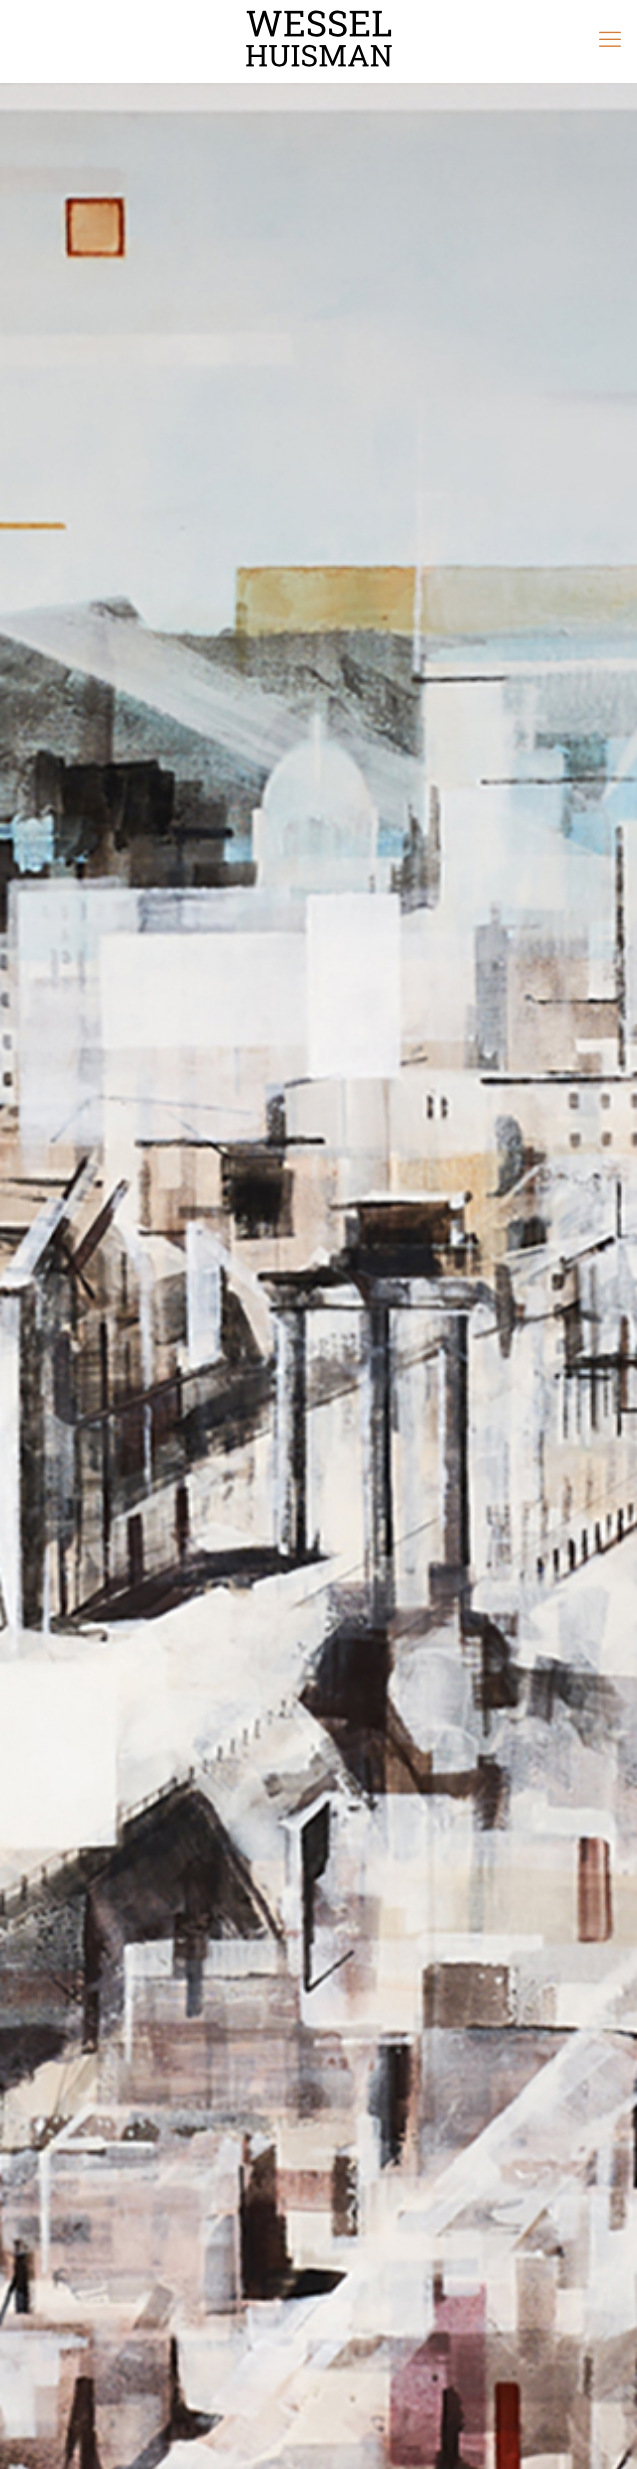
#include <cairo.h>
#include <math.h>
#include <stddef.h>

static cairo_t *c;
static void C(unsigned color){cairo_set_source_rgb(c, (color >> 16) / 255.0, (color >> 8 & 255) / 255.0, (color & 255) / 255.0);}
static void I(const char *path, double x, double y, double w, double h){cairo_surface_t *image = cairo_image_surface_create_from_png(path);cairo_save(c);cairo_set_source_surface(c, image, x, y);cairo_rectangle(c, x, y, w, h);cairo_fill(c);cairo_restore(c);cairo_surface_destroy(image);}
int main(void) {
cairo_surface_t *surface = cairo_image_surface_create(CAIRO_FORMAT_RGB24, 637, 2469);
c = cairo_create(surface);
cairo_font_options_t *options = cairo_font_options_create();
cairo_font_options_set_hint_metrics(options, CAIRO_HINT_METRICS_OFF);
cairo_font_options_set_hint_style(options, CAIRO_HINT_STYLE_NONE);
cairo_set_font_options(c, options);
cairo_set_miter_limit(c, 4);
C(0xffffff);
cairo_paint(c);
I("1.png",246,10,146,57);
I("2.png",599,31,22,16);
I("3.png",0,83,637,2386);
cairo_surface_write_to_png(surface, "o.png");
cairo_font_options_destroy(options);
cairo_destroy(c);
cairo_surface_destroy(surface);
return 0;
}
